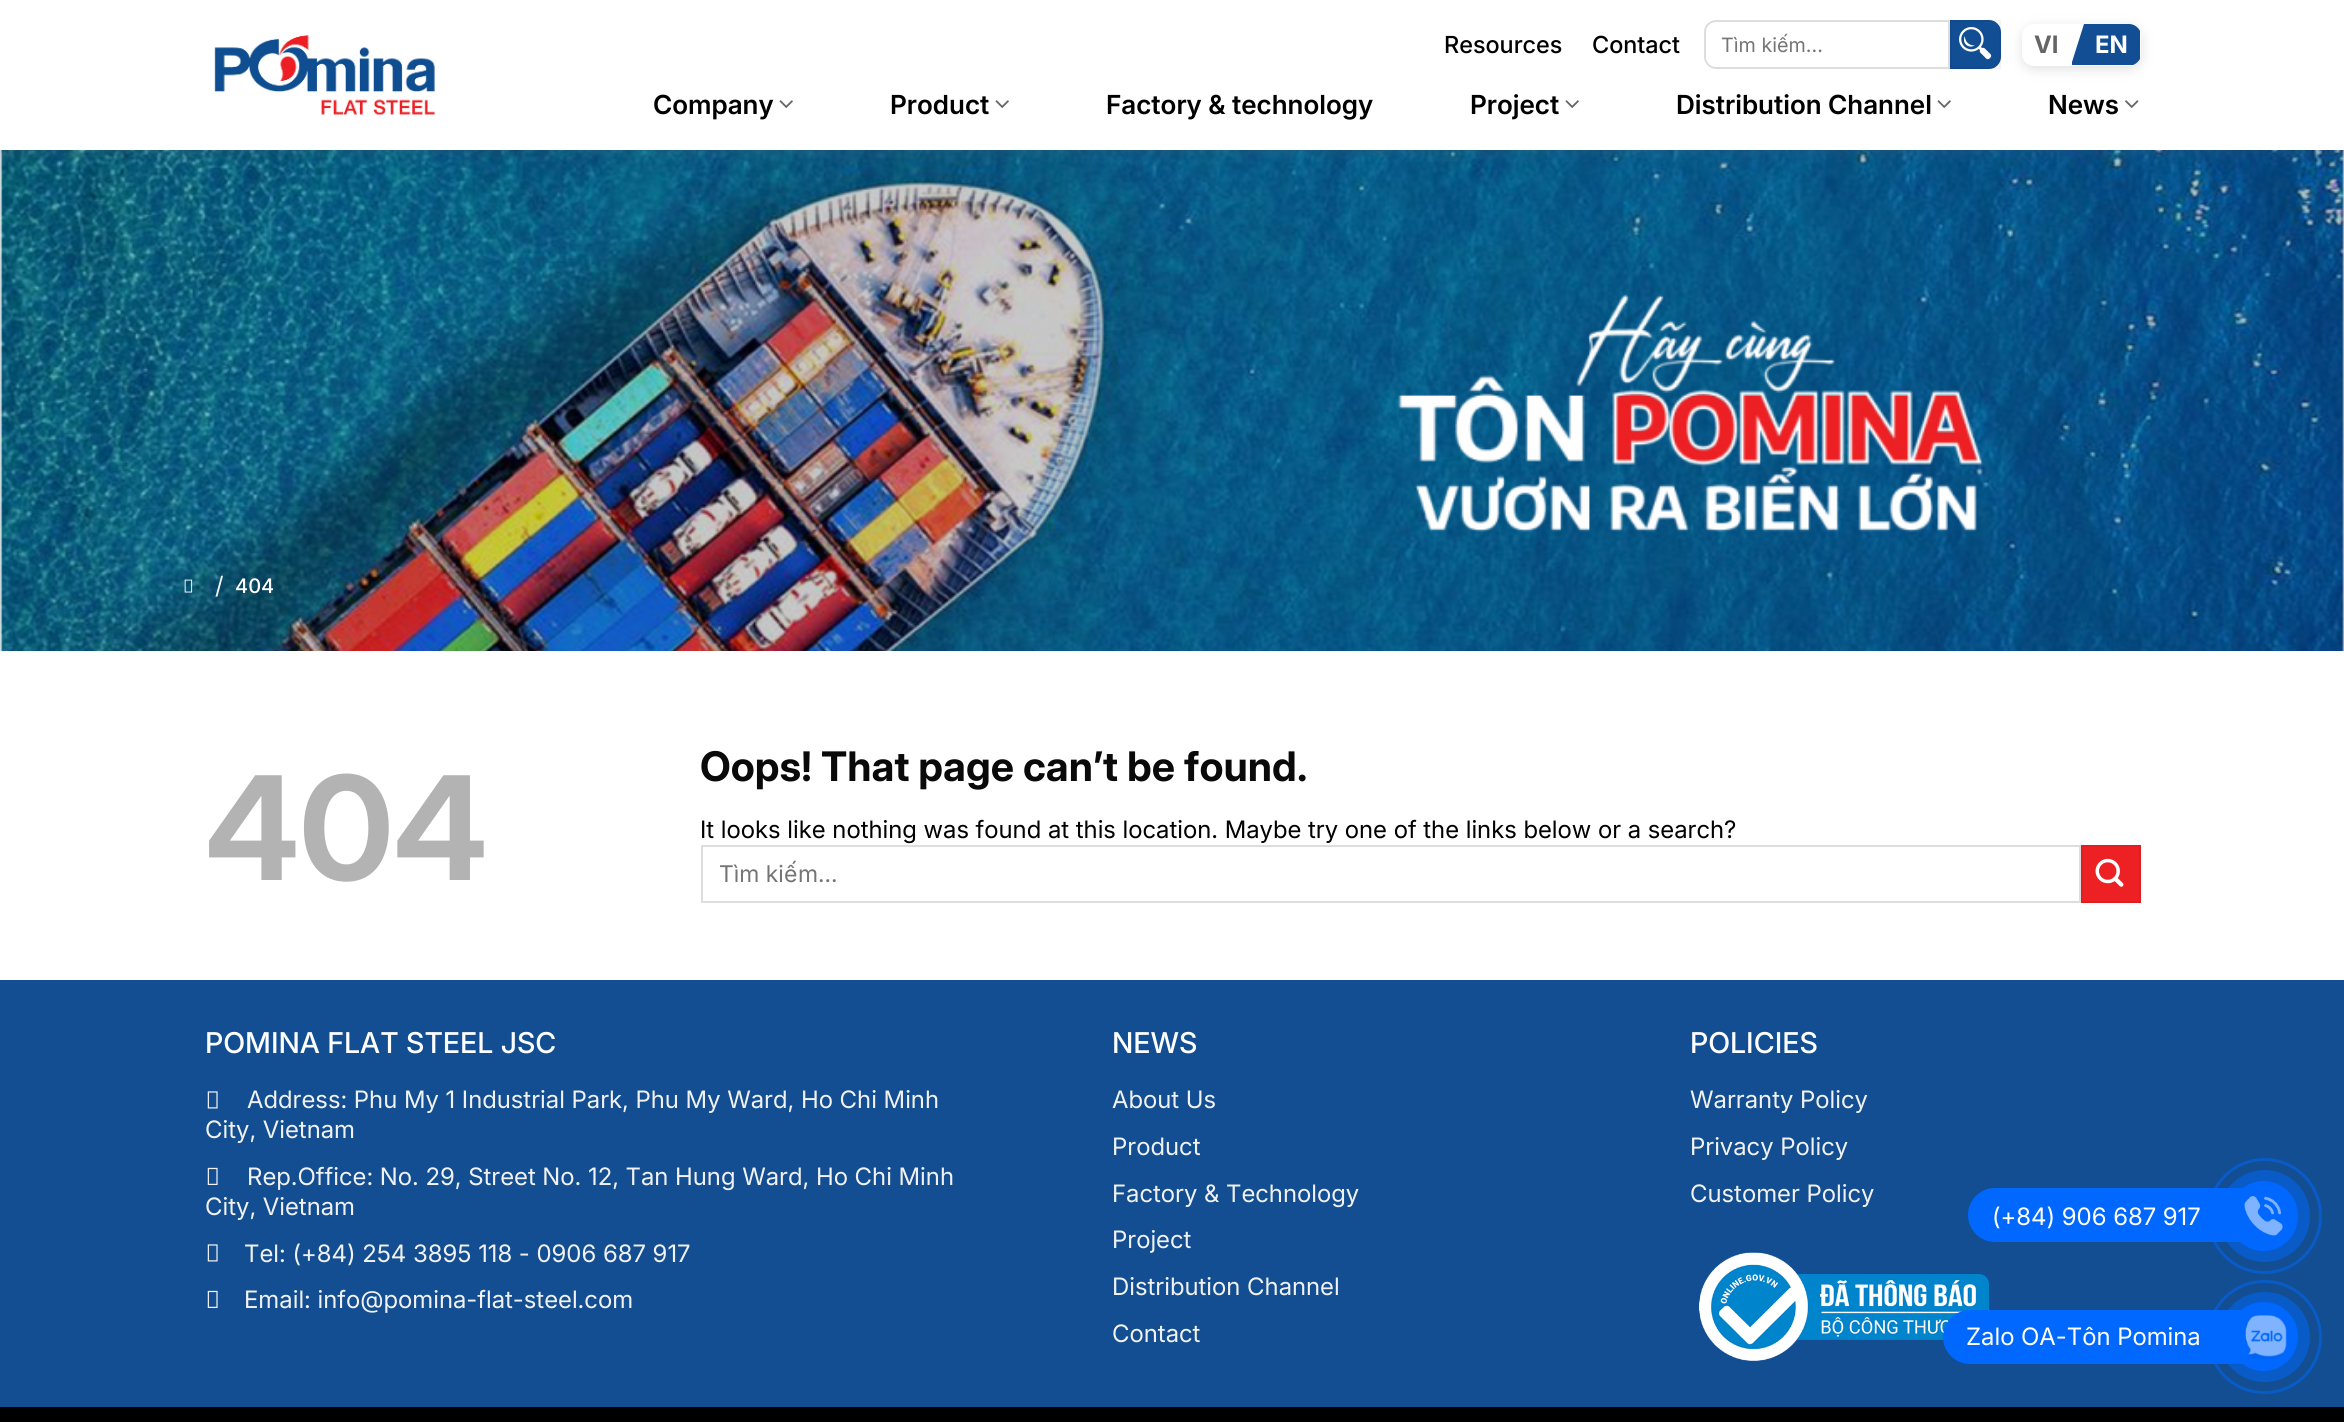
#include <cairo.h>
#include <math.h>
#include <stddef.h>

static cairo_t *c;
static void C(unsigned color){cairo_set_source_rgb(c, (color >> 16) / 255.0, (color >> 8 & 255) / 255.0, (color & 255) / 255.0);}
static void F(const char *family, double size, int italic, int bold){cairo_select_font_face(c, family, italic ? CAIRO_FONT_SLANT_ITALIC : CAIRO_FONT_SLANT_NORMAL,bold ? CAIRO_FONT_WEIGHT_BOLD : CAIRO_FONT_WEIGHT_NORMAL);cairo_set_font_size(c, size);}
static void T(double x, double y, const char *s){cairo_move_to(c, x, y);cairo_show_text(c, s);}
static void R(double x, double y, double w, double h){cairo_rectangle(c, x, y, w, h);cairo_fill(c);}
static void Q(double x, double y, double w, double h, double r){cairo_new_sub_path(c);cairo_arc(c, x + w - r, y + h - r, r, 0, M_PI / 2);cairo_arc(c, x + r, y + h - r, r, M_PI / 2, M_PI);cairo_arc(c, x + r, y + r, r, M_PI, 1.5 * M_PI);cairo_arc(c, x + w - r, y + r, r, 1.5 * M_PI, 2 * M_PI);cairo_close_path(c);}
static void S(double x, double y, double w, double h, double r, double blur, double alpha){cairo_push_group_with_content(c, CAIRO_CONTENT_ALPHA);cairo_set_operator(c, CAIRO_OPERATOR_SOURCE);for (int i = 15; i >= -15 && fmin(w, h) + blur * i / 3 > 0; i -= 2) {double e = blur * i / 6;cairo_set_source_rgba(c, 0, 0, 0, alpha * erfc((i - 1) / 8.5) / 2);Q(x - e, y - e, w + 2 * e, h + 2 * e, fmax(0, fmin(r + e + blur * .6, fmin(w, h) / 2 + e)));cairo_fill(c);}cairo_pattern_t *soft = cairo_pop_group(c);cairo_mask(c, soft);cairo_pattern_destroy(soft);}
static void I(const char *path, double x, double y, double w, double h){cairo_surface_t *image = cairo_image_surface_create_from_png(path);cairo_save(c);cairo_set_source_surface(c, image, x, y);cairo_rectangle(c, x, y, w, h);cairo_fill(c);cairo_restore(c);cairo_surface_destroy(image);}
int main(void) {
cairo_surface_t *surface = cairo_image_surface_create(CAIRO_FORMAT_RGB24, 2344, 1422);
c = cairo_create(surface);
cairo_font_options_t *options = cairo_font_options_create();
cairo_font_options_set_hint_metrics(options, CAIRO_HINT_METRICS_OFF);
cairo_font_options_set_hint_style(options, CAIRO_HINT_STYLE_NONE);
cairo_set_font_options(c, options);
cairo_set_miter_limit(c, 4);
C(0xffffff);
cairo_paint(c);
I("5.png",0,150,2344,501);
C(0x636363);
S(0,3,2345,150,0,6,.2);
C(0xffffff);
R(0,0,2344,150);
I("1.png",214,35,221,80);
F("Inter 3 Medium",23.5,0,0);
C(0x000000);
T(1444,53,"Resources");
T(1592,53,"Contact");
cairo_new_path(c);
cairo_move_to(c,1716,21);
cairo_line_to(c,1949,21);
cairo_line_to(c,1949,68);
cairo_line_to(c,1716,68);
cairo_curve_to(c,1710,68,1705,63,1705,57);
cairo_line_to(c,1705,32);
cairo_curve_to(c,1705,26,1710,21,1716,21);
cairo_close_path(c);
C(0xdddddd);
cairo_stroke(c);
F("Inter 3",19.75,0,0);
C(0x757575);
T(1721,52,"Tìm kiếm...");
C(0x124e94);
cairo_new_path(c);
cairo_move_to(c,1950,20);
cairo_line_to(c,1989,20);
cairo_curve_to(c,1995.5,20,2001,25.5,2001,32);
cairo_line_to(c,2001,57);
cairo_curve_to(c,2001,63.5,1995.5,69,1989,69);
cairo_line_to(c,1950,69);
cairo_close_path(c);
cairo_fill(c);
I("2.png",1959,27,33,33);
cairo_rectangle(c,1951,21,49,47);
cairo_set_source_rgba(c,0,0,0,0.05);
cairo_stroke(c);
C(0x636363);
S(2022,27,119,42,12,6,.2);
C(0xffffff);
Q(2022,24,119,42,12);
cairo_fill(c);
F("Inter 3",24,0,1);
C(0x656565);
T(2034,53,"VI");
C(0x124e94);
cairo_new_path(c);
cairo_move_to(c,2072,62);
cairo_line_to(c,2084,24);
cairo_line_to(c,2129,24);
cairo_curve_to(c,2134,24,2138,27,2140,31);
cairo_line_to(c,2140,59);
cairo_curve_to(c,2138,62,2136,64,2133,65);
cairo_line_to(c,2072,65);
cairo_close_path(c);
cairo_fill(c);
F("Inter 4",24,0,1);
C(0xffffff);
T(2095,53,"EN");
F("Inter SemiBold",26.25,0,0);
C(0x000000);
T(653,114,"Company");
I("3.png",779,100,14,8);
T(890,114,"Product");
I("3.png",995,100,14,8);
T(1106,114,"Factory & technology");
T(1470,114,"Project");
I("3.png",1565,100,14,8);
T(1676,114,"Distribution Channel");
I("3.png",1937,100,14,8);
T(2048,114,"News");
I("4.png",2125,100,14,8);
I("6.png",184,579,9,14);
F("Inter",24,0,0);
C(0xf1f1f1);
T(215,594,"/");
F("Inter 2 Medium",20,0,0);
C(0xffffff);
T(235,593,"404");
F("Inter",144,0,1);
C(0xb3b3b3);
T(205,880,"404");
F("Inter 2",40.75,0,1);
C(0x0a0a0a);
T(700,781,"Oops! That page can’t be found.");
F("Inter",24,0,0);
C(0x000000);
T(700,838,"It looks like nothing was found at this location. Maybe try one of the links below or a search?");
cairo_rectangle(c,702,846,1378,56);
C(0xdddddd);
cairo_stroke(c);
F("Inter 2",23,0,0);
C(0x757575);
T(719,882,"Tìm ki");
F("Inter 3",23,0,0);
T(784,882,"ế");
F("Inter 2",23,0,0);
T(798,882,"m...");
C(0xed2024);
cairo_rectangle(c,2082,846,58,56);
cairo_fill_preserve(c);
C(0xe11e22);
cairo_stroke(c);
I("7.png",2095,858,29,29);
C(0x124e91);
R(0,980,2344,427);
F("Inter Medium",28.7,0,0);
C(0xffffff);
T(205,1053,"POMINA FLAT STEEL JSC");
I("8.png",207,1091,11,18);
F("Inter",24,0,0);
C(0xf1f1f1);
T(247,1108,"Address: Phu My 1 Industrial Park, Phu My Ward, Ho Chi Minh");
T(205,1138,"City, Vietnam");
I("9.png",207,1167,11,18);
T(247,1185,"Rep.Office: No. 29, Street No. 12, Tan Hung Ward, Ho Chi Minh");
T(205,1215,"City, Vietnam");
I("8.png",207,1244,11,18);
T(244,1262,"Tel: (+84) 254 3895 118 - 0906 687 917");
I("9.png",207,1290,11,18);
T(244,1308,"Email: info@pomina-flat-steel.com");
F("Inter Medium",28.7,0,0);
C(0xffffff);
T(1112,1053,"NEWS");
F("Inter",24,0,0);
C(0xf1f1f1);
T(1112,1108,"About Us");
T(1112,1155,"Product");
T(1112,1202,"Factory & Technology");
T(1112,1248,"Project");
T(1112,1295,"Distribution Channel");
T(1112,1342,"Contact");
F("Inter Medium",28.7,0,0);
C(0xffffff);
T(1690,1053,"POLICIES");
F("Inter",24,0,0);
C(0xf1f1f1);
T(1690,1108,"Warranty Policy");
T(1690,1155,"Privacy Policy");
T(1690,1202,"Customer Policy");
I("10.png",1699,1252,290,109);
C(0x000000);
R(0,1407,2344,15);
C(0x0068ff);
Q(1968,1188,305,54,27);
cairo_fill(c);
Q(2229,1181,69,70,34.5);
cairo_fill(c);
I("11.png",2244,1196,39,40);
Q(2208.5,1159.5,112,113,56);
cairo_set_source_rgba(c,0,0.408,1,0.5);
cairo_set_line_width(c,3);
cairo_stroke(c);
Q(2219,1170,91,92,45.5);
cairo_fill(c);
C(0xffffff);
T(1992,1225,"(+84) 906 687 917");
C(0x0068ff);
Q(1943,1310,330,54,27);
cairo_fill(c);
cairo_arc(c,2263.5,1336.5,34.5,0,2 * M_PI);
cairo_fill(c);
I("12.png",2245,1315,42,44);
Q(2208.5,1281.5,112,111,55.5);
cairo_set_source_rgba(c,0,0.408,1,0.5);
cairo_stroke(c);
Q(2219,1292,91,90,45);
cairo_fill(c);
C(0xffffff);
T(1966,1345,"Zalo OA-Tôn Pomina");
cairo_surface_write_to_png(surface, "o.png");
cairo_font_options_destroy(options);
cairo_destroy(c);
cairo_surface_destroy(surface);
return 0;
}
